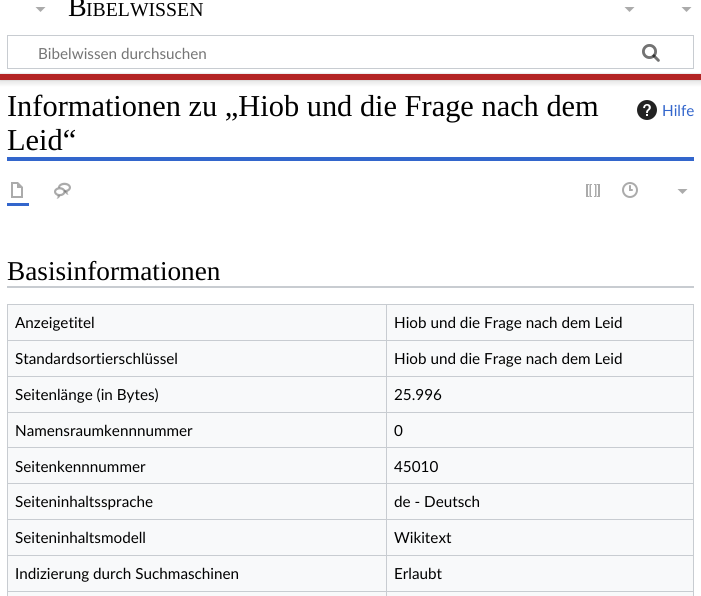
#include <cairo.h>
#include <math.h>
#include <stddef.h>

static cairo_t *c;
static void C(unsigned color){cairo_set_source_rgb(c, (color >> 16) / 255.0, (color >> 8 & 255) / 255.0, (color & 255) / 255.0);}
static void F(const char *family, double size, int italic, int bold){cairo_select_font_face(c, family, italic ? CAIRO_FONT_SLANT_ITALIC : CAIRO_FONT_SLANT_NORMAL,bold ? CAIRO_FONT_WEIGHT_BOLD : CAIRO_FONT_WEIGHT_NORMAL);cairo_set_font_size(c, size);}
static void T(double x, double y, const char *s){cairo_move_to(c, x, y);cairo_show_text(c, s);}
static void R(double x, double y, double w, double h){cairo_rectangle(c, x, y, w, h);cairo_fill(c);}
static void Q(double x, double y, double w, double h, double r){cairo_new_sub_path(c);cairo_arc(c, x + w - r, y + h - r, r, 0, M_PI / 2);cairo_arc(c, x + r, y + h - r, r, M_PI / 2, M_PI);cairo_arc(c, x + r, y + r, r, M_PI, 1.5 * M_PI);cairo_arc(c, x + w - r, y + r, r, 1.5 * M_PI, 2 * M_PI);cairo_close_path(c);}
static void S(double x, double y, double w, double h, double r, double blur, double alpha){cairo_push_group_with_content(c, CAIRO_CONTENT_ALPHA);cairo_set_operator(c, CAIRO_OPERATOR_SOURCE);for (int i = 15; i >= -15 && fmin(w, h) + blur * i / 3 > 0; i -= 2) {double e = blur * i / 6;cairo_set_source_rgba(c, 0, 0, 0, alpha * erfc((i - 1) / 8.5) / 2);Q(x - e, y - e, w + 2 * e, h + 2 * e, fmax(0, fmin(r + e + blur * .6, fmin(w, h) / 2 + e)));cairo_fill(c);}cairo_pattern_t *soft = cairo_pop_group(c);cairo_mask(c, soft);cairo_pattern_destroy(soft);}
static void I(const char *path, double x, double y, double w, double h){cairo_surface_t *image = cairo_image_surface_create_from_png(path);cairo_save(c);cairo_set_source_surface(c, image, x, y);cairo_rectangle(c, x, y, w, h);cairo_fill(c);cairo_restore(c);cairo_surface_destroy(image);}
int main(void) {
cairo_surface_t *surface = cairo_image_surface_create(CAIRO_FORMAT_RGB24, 701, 596);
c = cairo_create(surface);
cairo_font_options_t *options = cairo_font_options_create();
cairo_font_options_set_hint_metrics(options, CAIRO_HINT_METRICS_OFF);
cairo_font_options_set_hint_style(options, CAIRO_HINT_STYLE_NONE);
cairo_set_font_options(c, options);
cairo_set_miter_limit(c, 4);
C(0xffffff);
cairo_paint(c);
F("Liberation Serif",28,0,0);
C(0x000000);
T(68,16,"B");
F("Liberation Serif",19.75,0,0);
T(86,16,"IBELWISSEN");
C(0xababab);
cairo_new_path(c);
cairo_move_to(c,691.5,7);
cairo_line_to(c,686.5,12);
cairo_line_to(c,681.5,7);
cairo_close_path(c);
cairo_fill(c);
cairo_rectangle(c,7.5,35.5,686,33);
C(0xc8ccd1);
cairo_set_line_width(c,1);
cairo_stroke(c);
I("1.png",642,44,18,18);
F("Lato",15.25,0,0);
C(0x757575);
T(38,59,"Bibelwissen durchsuchen");
I("2.png",642,44,18,18);
C(0x000000);
S(0,74,701,6,0,1,.2);
S(-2,75,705,10,0,1.5,.07);
C(0xb32424);
R(0,74,701,6);
C(0xababab);
cairo_new_path(c);
cairo_move_to(c,45.5,7);
cairo_line_to(c,40.5,12);
cairo_line_to(c,35.5,7);
cairo_close_path(c);
cairo_fill(c);
cairo_new_path(c);
cairo_move_to(c,634.5,7);
cairo_line_to(c,629.5,12);
cairo_line_to(c,624.5,7);
cairo_close_path(c);
cairo_fill(c);
C(0x3366cc);
R(7,157,687,4);
F("Liberation Serif",30.4,0,0);
C(0x000000);
T(7,116,"Informationen zu „Hiob und die Frage nach dem");
T(7,150,"Leid“");
I("3.png",637,100,20,20);
F("Lato",15.25,0,0);
C(0x3366cc);
T(662,116,"Hilfe");
R(7,203,22,3);
I("4.png",11,182,12,16);
I("5.png",54,182,17,17);
I("6.png",586,184,14,13);
I("7.png",622,182,16,16);
C(0xababab);
cairo_new_path(c);
cairo_move_to(c,687.5,189);
cairo_line_to(c,682.5,194);
cairo_line_to(c,677.5,189);
cairo_close_path(c);
cairo_fill(c);
C(0xc8ccd1);
R(7,286,687,2);
F("Liberation Serif",27.25,0,0);
C(0x000000);
T(7,280,"Basisinformationen");
C(0xf8f9fa);
R(8,305,685,291);
C(0xc8ccd1);
R(7,304,687,1);
R(693,304,1,292);
R(7,304,1,292);
F("Lato",15.25,0,0);
C(0x000000);
T(15,328,"Anzeigetitel");
C(0xc8ccd1);
R(386,340,308,1);
R(386,376,308,1);
R(386,412,308,1);
R(386,447,308,1);
R(386,483,308,1);
R(386,519,308,1);
R(386,555,308,1);
R(386,591,308,1);
R(386,591,1,5);
R(7,591,380,1);
R(386,555,1,37);
R(7,555,380,1);
R(386,519,1,37);
R(7,519,380,1);
R(386,483,1,37);
R(7,483,380,1);
R(386,447,1,37);
R(7,447,380,1);
R(386,412,1,36);
R(7,412,380,1);
R(386,376,1,37);
R(7,376,380,1);
R(386,340,1,37);
R(7,340,380,1);
R(386,304,1,37);
C(0x000000);
T(394,328,"Hiob und die Frage nach dem Leid");
T(15,364,"Standardsortierschlüssel");
T(394,364,"Hiob und die Frage nach dem Leid");
T(15,400,"Seitenlänge (in Bytes)");
T(394,400,"25.996");
T(15,436,"Namensraumkennnummer");
T(394,436,"0");
T(15,472,"Seitenkennnummer");
T(394,472,"45010");
T(15,507,"Seiteninhaltssprache");
T(394,507,"de - Deutsch");
T(15,543,"Seiteninhaltsmodell");
T(394,543,"Wikitext");
T(15,579,"Indizierung durch Suchmaschinen");
T(394,579,"Erlaubt");
cairo_surface_write_to_png(surface, "o.png");
cairo_font_options_destroy(options);
cairo_destroy(c);
cairo_surface_destroy(surface);
return 0;
}
